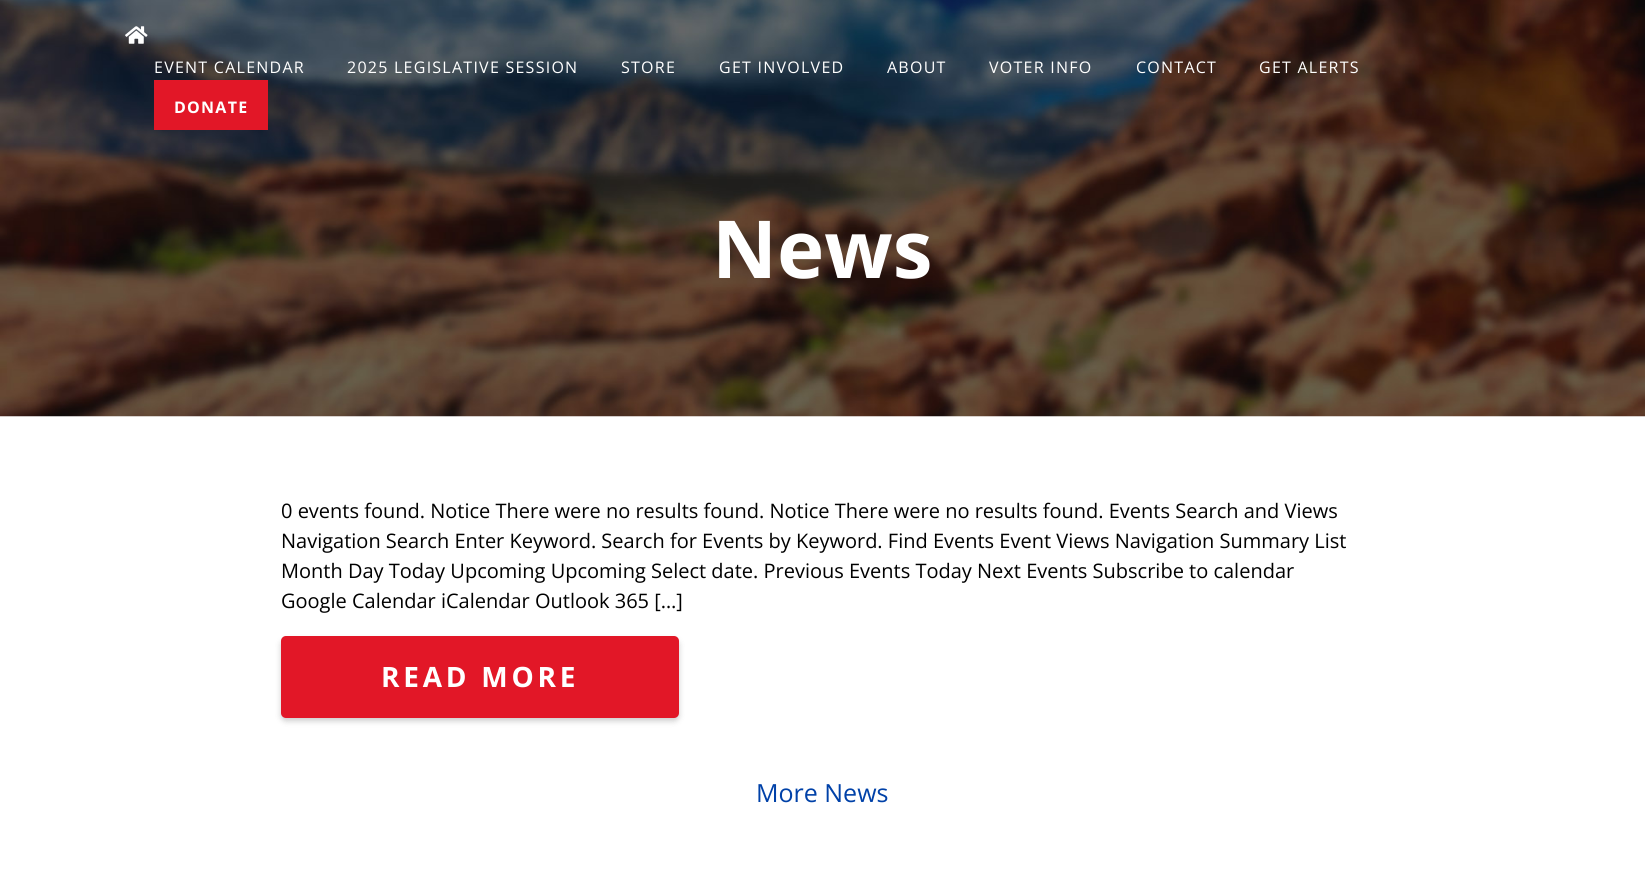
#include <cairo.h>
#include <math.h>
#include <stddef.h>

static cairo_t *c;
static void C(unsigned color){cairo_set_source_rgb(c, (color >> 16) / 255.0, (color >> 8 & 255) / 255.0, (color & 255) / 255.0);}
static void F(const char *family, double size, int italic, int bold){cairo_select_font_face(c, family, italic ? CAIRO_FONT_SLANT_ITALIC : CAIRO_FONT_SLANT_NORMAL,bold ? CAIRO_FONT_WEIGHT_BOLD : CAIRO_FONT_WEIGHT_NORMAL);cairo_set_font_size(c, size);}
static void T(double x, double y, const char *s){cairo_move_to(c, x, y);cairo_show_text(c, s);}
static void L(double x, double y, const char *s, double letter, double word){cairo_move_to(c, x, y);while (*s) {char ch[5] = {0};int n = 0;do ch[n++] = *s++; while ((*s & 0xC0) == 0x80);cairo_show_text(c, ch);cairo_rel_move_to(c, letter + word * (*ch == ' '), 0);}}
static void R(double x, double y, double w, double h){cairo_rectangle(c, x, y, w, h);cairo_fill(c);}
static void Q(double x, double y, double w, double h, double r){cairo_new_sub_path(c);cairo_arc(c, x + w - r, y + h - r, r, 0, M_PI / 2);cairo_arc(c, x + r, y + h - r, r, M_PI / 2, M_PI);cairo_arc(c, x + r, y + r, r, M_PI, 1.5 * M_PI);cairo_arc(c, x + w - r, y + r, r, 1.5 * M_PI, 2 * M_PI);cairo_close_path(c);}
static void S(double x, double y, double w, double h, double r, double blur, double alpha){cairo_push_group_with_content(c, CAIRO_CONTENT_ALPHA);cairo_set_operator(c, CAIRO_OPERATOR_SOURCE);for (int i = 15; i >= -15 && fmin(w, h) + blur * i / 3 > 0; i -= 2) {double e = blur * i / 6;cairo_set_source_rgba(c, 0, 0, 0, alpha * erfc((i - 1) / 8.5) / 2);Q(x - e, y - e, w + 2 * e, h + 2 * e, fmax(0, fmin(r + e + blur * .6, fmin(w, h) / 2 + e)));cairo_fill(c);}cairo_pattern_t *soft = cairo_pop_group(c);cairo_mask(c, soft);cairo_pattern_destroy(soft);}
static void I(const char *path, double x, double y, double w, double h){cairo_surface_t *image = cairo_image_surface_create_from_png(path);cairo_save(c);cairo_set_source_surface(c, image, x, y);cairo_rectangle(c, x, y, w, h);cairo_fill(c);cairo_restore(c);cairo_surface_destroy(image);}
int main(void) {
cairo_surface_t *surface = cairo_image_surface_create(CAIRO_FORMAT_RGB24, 1645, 870);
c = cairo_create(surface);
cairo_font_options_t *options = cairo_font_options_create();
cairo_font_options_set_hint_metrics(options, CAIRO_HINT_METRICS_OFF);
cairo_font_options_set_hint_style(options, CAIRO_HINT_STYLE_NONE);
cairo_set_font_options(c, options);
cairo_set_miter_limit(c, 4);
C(0xffffff);
cairo_paint(c);
I("2.png",0,0,1645,417);
I("1.png",125,26,23,18);
F("Open Sans",16,0,0);
C(0xffffff);
L(154,73,"EVENT CALENDAR",1.25,0);
L(347,73,"2025 LEGISLATIVE SESSION",1.25,0);
L(621,73,"STORE",1.25,0);
L(719,73,"GET INVOLVED",1.25,0);
L(887,73,"ABOUT",1.25,0);
L(989,73,"VOTER INFO",1.25,0);
L(1136,73,"CONTACT",1.25,0);
L(1259,73,"GET ALERTS",1.25,0);
C(0xe21727);
R(154,80,114,50);
F("Open Sans",16,0,1);
C(0xffffff);
L(174,113,"DONATE",1.25,0);
F("Open Sans",80,0,1);
T(712,278,"News");
F("Open Sans",20,0,0);
C(0x000000);
T(281,518,"0 events found. Notice There were no results found. Notice There were no results found. Events Search and Views");
T(281,548,"Navigation Search Enter Keyword. Search for Events by Keyword. Find Events Event Views Navigation Summary List");
T(281,578,"Month Day Today Upcoming Upcoming Select date. Previous Events Today Next Events Subscribe to calendar");
T(281,608,"Google Calendar iCalendar Outlook 365 […]");
C(0x000000);
S(281,640,398,81,5,3,.2);
C(0xe21727);
Q(281,636,398,82,5);
cairo_fill(c);
F("Open Sans",28,0,1);
C(0xffffff);
L(381,687,"READ MORE",3.75,0);
F("Open Sans",25,0,0);
C(0x0041a8);
T(756,802,"More News");
cairo_surface_write_to_png(surface, "o.png");
cairo_font_options_destroy(options);
cairo_destroy(c);
cairo_surface_destroy(surface);
return 0;
}
